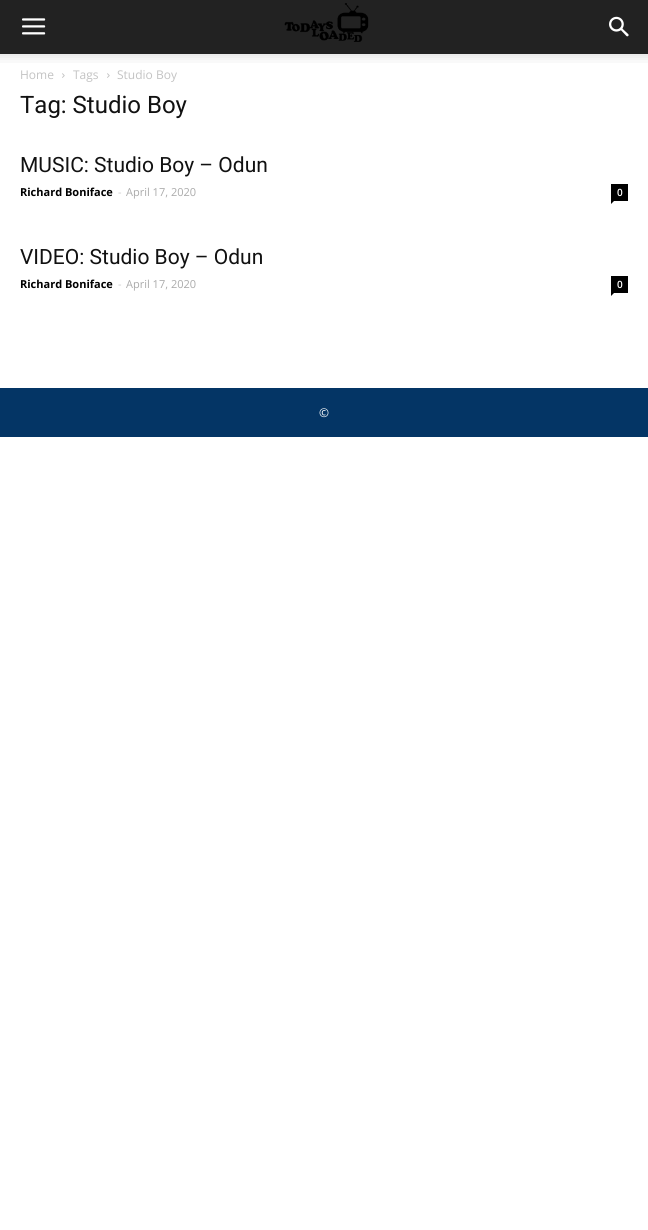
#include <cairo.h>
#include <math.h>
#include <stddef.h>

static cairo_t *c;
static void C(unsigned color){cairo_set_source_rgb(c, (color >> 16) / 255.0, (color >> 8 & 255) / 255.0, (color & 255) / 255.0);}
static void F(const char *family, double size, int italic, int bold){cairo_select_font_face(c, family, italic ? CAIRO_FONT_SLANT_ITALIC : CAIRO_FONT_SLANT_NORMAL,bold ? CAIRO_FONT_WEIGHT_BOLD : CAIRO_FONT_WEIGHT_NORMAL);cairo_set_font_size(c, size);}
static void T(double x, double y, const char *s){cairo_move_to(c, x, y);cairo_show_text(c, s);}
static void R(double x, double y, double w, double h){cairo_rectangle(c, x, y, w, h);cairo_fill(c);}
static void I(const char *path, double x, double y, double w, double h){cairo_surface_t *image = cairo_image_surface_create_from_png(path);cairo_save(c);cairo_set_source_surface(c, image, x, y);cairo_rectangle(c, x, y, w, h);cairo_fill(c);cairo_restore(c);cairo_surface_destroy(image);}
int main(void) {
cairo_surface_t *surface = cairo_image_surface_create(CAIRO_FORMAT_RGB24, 648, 1230);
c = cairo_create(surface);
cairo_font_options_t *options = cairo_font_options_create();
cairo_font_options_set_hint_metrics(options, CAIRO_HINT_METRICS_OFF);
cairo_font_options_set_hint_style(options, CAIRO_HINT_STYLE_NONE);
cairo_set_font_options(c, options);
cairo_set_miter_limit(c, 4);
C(0xffffff);
cairo_paint(c);
C(0x222222);
R(0,0,648,54);
I("1.png",22,18,24,17);
I("2.png",284,3,85,39);
I("3.png",609,16,20,21);
I("4.png",0,54,648,9);
F("Open Sans",12,0,0);
C(0xc3c3c3);
T(20,79,"Home");
I("5.png",62,73,3,5);
T(73,79,"Tags");
I("5.png",107,73,3,5);
T(117,79,"Studio Boy");
F("Roboto",24,0,0);
C(0x111111);
T(20,113,"Tag: Studio Boy");
F("Roboto",21,0,0);
T(20,172,"MUSIC: Studio Boy – Odun");
F("Open Sans",11,0,1);
C(0x000000);
T(20,196,"Richard Boniface");
F("Open Sans",11,0,0);
C(0xcccccc);
T(118,196,"-");
C(0xaaaaaa);
T(126,196,"April 17, 2020");
C(0x000000);
R(611,184,17,17);
F("Open Sans SemiBold",10,0,0);
C(0xffffff);
T(617,196,"0");
C(0x000000);
cairo_new_path(c);
cairo_move_to(c,611,201);
cairo_line_to(c,614,201);
cairo_line_to(c,611,204);
cairo_close_path(c);
cairo_fill(c);
F("Roboto",21,0,0);
C(0x111111);
T(20,264,"VIDEO: Studio Boy – Odun");
F("Open Sans",11,0,1);
C(0x000000);
T(20,288,"Richard Boniface");
F("Open Sans",11,0,0);
C(0xcccccc);
T(118,288,"-");
C(0xaaaaaa);
T(126,288,"April 17, 2020");
C(0x000000);
R(611,276,17,17);
F("Open Sans SemiBold",10,0,0);
C(0xffffff);
T(617,288,"0");
C(0x000000);
cairo_new_path(c);
cairo_move_to(c,611,293);
cairo_line_to(c,614,293);
cairo_line_to(c,611,296);
cairo_close_path(c);
cairo_fill(c);
C(0x043565);
R(0,388,648,49);
F("Open Sans",12,0,0);
C(0xffffff);
T(319,417,"©");
cairo_surface_write_to_png(surface, "o.png");
cairo_font_options_destroy(options);
cairo_destroy(c);
cairo_surface_destroy(surface);
return 0;
}
